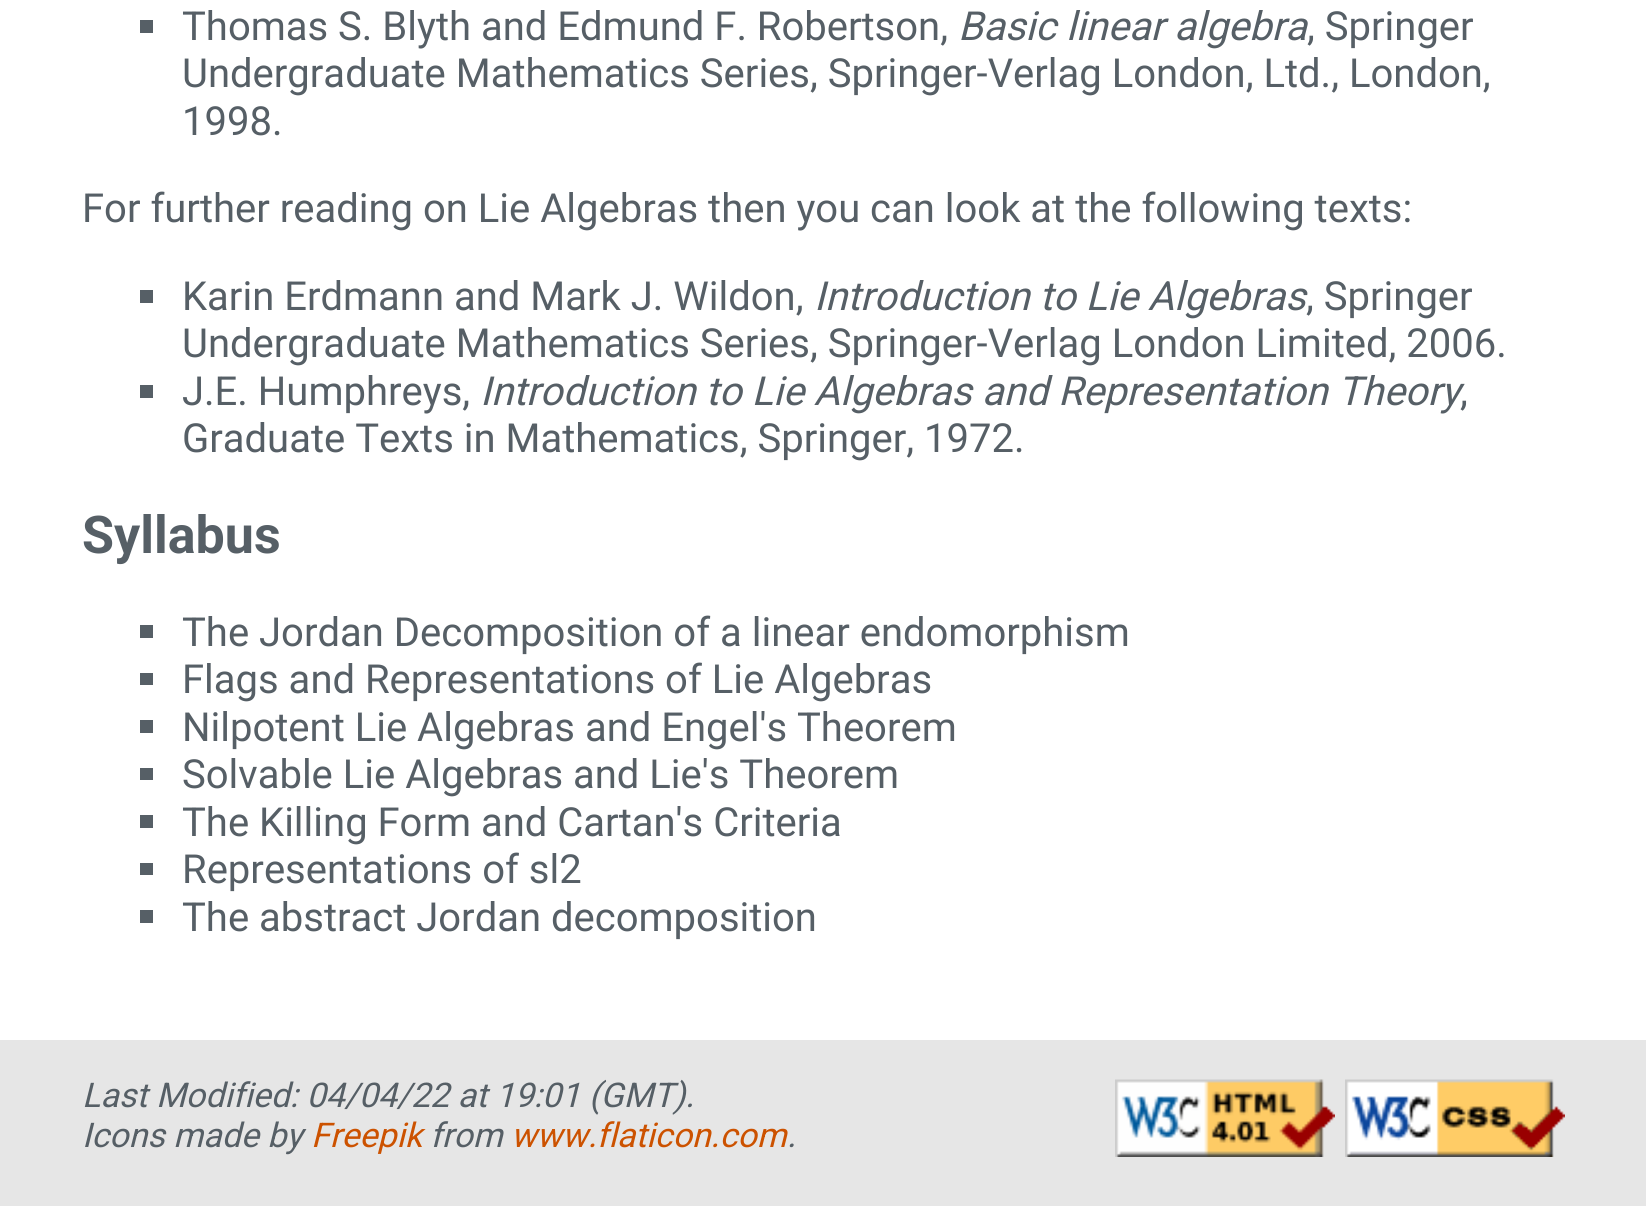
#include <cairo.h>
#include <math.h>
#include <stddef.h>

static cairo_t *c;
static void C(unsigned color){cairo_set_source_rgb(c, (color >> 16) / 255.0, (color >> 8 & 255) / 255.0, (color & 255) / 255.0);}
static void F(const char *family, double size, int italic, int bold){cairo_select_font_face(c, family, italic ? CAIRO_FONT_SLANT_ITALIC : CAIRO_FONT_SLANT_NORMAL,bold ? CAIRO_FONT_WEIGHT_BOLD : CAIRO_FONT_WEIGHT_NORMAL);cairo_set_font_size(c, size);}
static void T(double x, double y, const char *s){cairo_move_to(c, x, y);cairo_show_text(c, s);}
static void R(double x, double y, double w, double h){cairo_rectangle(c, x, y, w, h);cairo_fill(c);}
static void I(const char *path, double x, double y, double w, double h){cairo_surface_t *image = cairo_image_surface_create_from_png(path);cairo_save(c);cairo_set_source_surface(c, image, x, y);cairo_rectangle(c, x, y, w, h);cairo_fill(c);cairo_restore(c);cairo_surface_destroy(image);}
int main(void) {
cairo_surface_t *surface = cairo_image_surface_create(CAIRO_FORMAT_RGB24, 1646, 1206);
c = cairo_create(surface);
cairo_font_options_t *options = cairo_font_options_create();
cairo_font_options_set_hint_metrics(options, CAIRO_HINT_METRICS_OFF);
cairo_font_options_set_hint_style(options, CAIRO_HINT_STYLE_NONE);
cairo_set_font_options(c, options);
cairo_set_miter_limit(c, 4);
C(0xffffff);
cairo_paint(c);
C(0x565f66);
R(140,20,13,13);
F("Roboto",40,0,0);
T(182,40,"Thomas S. Blyth and Edmund F. Robertson,");
F("Roboto",40,1,0);
T(958,40,"Basic linear algebra");
F("Roboto",40,0,0);
T(1307,40,", Springer");
T(182,87,"Undergraduate Mathematics Series, Springer-Verlag London, Ltd., London,");
T(182,135,"1998.");
T(82,222,"For further reading on Lie Algebras then you can look at the following texts:");
R(140,290,13,13);
T(182,310,"Karin Erdmann and Mark J. Wildon,");
F("Roboto",40,1,0);
T(814,310,"Introduction to Lie Algebras");
F("Roboto",40,0,0);
T(1306,310,", Springer");
T(182,357,"Undergraduate Mathematics Series, Springer-Verlag London Limited, 2006.");
R(140,385,13,13);
T(182,405,"J.E. Humphreys,");
F("Roboto",40,1,0);
T(480,405,"Introduction to Lie Algebras and Representation Theory");
F("Roboto",40,0,0);
T(1460,405,",");
T(182,452,"Graduate Texts in Mathematics, Springer, 1972.");
F("Roboto",52,0,1);
T(82,553,"Syllabus");
R(140,625,13,13);
F("Roboto",40,0,0);
T(182,646,"The Jordan Decomposition of a linear endomorphism");
R(140,673,13,12);
T(182,693,"Flags and Representations of Lie Algebras");
R(140,720,13,13);
T(182,741,"Nilpotent Lie Algebras and Engel's Theorem");
R(140,768,13,12);
T(182,788,"Solvable Lie Algebras and Lie's Theorem");
R(140,815,13,13);
T(182,836,"The Killing Form and Cartan's Criteria");
R(140,863,13,12);
T(182,883,"Representations of sl2");
R(140,910,13,13);
T(182,931,"The abstract Jordan decomposition");
C(0xe6e6e6);
R(0,1040,1646,166);
F("Roboto",34,1,0);
C(0x565f66);
T(82,1107,"Last Modified: 04/04/22 at 19:01 (GMT).");
T(82,1147,"Icons made by");
C(0xcc5200);
T(311,1147,"Freepik");
C(0x565f66);
T(430,1147,"from");
C(0xcc5200);
T(511,1147,"www.flaticon.com");
C(0x565f66);
T(787,1147,".");
I("1.png",1115,1079,220,78);
I("2.png",1345,1079,220,78);
cairo_surface_write_to_png(surface, "o.png");
cairo_font_options_destroy(options);
cairo_destroy(c);
cairo_surface_destroy(surface);
return 0;
}
